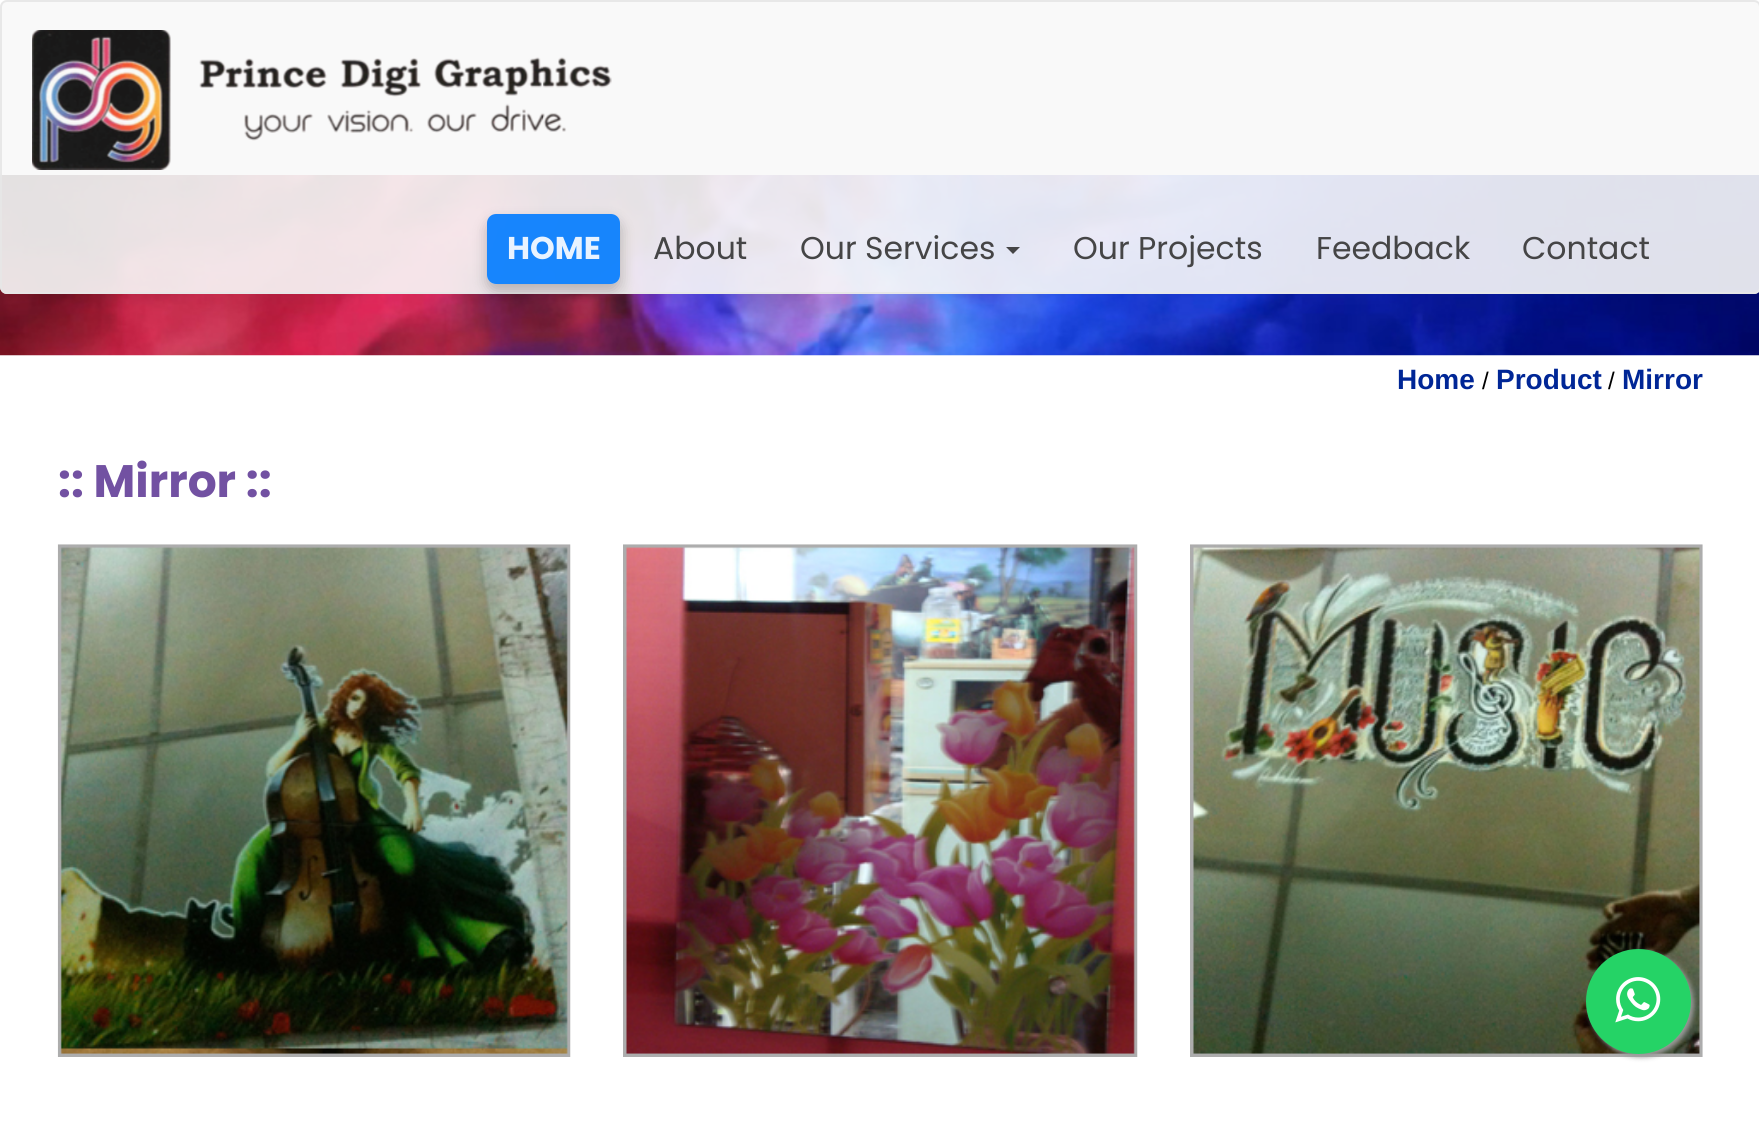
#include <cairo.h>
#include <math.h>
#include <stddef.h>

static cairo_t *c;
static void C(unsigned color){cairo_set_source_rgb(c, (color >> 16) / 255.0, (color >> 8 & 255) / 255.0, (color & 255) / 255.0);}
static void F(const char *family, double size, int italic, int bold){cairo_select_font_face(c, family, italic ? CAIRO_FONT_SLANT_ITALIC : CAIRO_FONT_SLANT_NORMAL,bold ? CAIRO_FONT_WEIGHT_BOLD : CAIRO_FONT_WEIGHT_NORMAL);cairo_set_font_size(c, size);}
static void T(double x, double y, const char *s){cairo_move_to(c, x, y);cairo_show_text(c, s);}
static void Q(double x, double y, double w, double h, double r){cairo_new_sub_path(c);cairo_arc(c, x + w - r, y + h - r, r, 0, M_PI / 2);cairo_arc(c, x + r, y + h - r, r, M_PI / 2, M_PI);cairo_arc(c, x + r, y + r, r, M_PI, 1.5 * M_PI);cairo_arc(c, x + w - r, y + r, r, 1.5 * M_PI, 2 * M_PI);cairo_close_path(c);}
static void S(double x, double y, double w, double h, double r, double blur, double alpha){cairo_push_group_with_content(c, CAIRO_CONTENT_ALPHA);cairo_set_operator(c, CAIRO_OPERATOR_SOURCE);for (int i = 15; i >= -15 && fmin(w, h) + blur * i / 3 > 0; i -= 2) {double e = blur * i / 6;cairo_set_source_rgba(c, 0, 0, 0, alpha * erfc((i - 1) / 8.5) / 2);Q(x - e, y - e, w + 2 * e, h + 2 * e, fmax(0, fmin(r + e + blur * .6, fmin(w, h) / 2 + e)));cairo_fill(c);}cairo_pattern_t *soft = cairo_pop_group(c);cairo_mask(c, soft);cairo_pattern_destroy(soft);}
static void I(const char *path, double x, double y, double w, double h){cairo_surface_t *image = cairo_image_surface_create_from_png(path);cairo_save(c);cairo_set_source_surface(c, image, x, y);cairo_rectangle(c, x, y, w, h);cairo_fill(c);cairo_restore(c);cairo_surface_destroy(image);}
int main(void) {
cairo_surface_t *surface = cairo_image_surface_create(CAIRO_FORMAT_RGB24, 1759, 1122);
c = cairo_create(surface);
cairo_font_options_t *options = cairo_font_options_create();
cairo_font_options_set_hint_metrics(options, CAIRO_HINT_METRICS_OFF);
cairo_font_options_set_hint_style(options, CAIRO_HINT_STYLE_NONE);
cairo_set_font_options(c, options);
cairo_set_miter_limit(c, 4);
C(0xffffff);
cairo_paint(c);
I("2.png",0,175,1759,181);
cairo_set_source_rgba(c,0.973,0.973,0.973,0.9);
Q(0,0,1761,294,7);
cairo_fill(c);
Q(1,1,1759,292,6);
cairo_set_source_rgba(c,0.906,0.906,0.906,0.9);
cairo_stroke(c);
I("1.png",32,30,580,140);
cairo_save(c);
cairo_set_fill_rule(c,CAIRO_FILL_RULE_EVEN_ODD);
cairo_new_path(c);
cairo_move_to(c,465,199);
cairo_line_to(c,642,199);
cairo_line_to(c,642,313);
cairo_line_to(c,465,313);
cairo_close_path(c);
cairo_move_to(c,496,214);
cairo_line_to(c,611,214);
cairo_curve_to(c,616,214,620,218,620,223);
cairo_line_to(c,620,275);
cairo_curve_to(c,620,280,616,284,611,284);
cairo_line_to(c,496,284);
cairo_curve_to(c,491,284,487,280,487,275);
cairo_line_to(c,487,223);
cairo_curve_to(c,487,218,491,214,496,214);
cairo_close_path(c);
cairo_clip(c);
C(0x000000);
S(487,221,133,70,9,7,.23);
cairo_restore(c);
cairo_set_source_rgba(c,0,0.482,1,0.9);
Q(487,214,133,70,9);
cairo_fill(c);
F("Poppins",31.5,0,1);
C(0xe8f3ff);
T(507,259,"HOME");
F("Poppins",31.5,0,0);
C(0x454546);
T(653,259,"About");
T(800,259,"Our Services");
cairo_new_path(c);
cairo_move_to(c,1006,247);
cairo_line_to(c,1020,247);
cairo_line_to(c,1013,254);
cairo_close_path(c);
cairo_fill(c);
T(1073,259,"Our Projects");
T(1316,259,"Feedback");
T(1522,259,"Contact");
F("Liberation Sans",28,0,1);
C(0x002696);
T(1397,389,"Home");
F("Liberation Sans",24,0,0);
C(0x000000);
T(1482,389,"/");
F("Liberation Sans",28,0,1);
C(0x002696);
T(1496,389,"Product");
F("Liberation Sans",24,0,0);
C(0x000000);
T(1608,389,"/");
F("Liberation Sans",28,0,1);
C(0x002696);
T(1622,389,"Mirror");
F("Poppins",45.5,0,1);
C(0x7251a2);
T(58,497,":: Mirror ::");
I("3.png",57,544,514,513);
I("4.png",623,544,515,513);
I("5.png",1190,544,513,513);
C(0x999999);
S(1589,952,105,105,52.5,2.5,1);
C(0x25d366);
cairo_arc(c,1638.5,1001.5,52.5,0,2 * M_PI);
cairo_fill(c);
I("6.png",1615,977,46,46);
cairo_surface_write_to_png(surface, "o.png");
cairo_font_options_destroy(options);
cairo_destroy(c);
cairo_surface_destroy(surface);
return 0;
}
